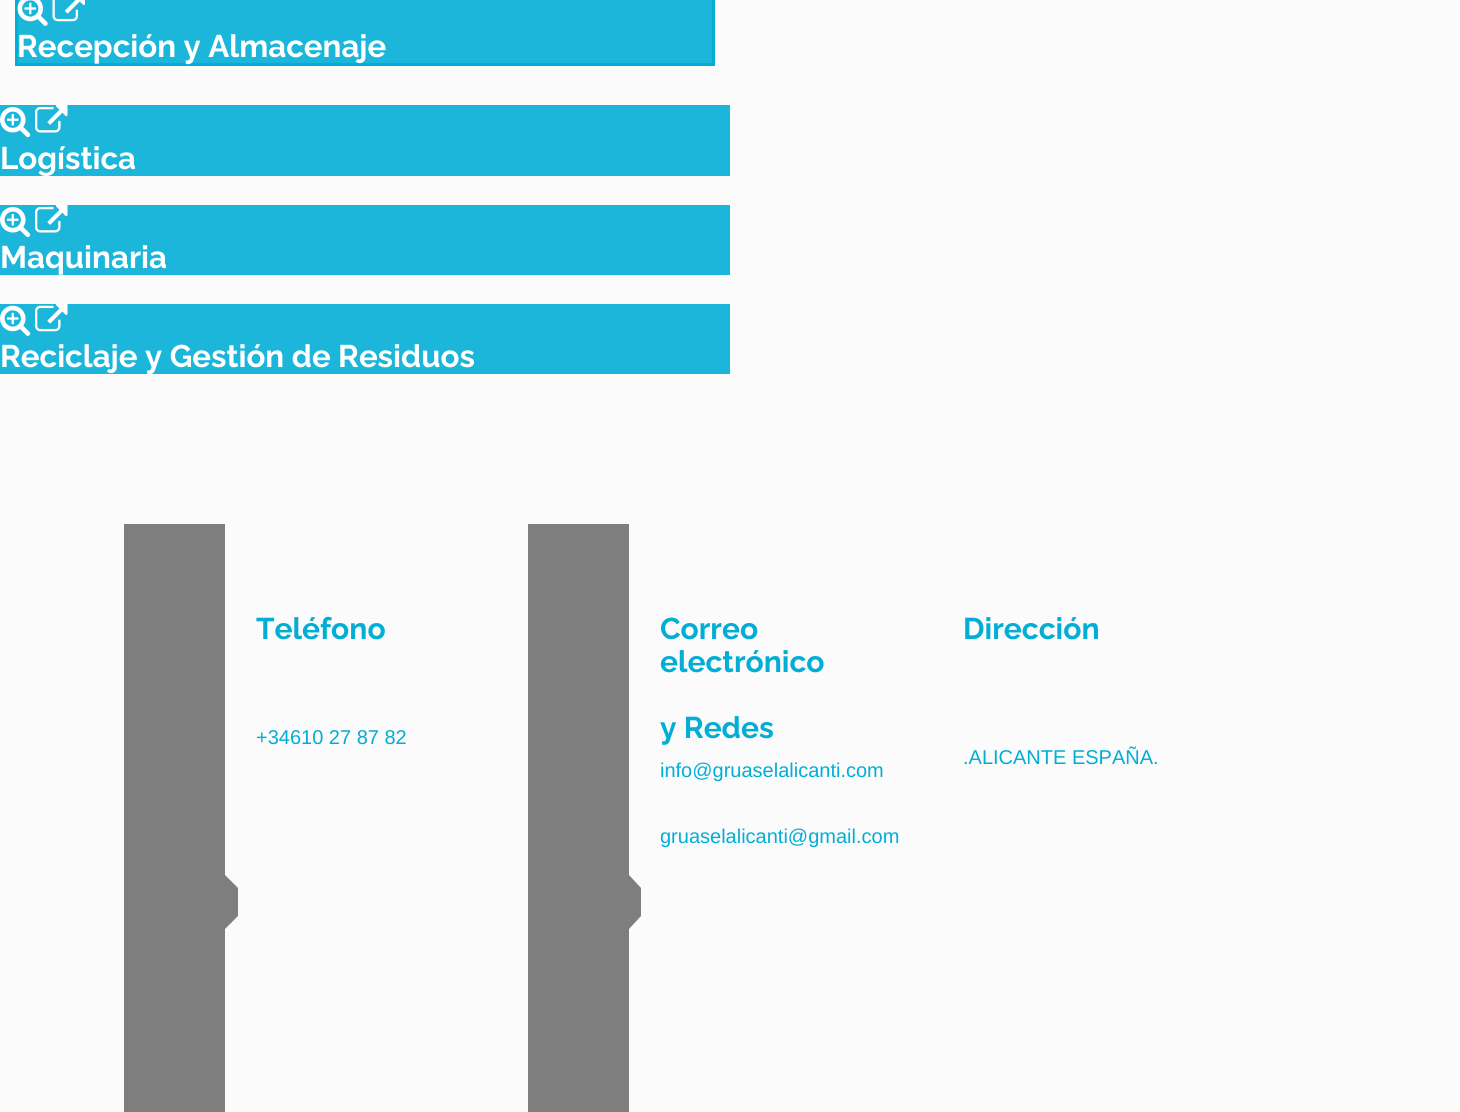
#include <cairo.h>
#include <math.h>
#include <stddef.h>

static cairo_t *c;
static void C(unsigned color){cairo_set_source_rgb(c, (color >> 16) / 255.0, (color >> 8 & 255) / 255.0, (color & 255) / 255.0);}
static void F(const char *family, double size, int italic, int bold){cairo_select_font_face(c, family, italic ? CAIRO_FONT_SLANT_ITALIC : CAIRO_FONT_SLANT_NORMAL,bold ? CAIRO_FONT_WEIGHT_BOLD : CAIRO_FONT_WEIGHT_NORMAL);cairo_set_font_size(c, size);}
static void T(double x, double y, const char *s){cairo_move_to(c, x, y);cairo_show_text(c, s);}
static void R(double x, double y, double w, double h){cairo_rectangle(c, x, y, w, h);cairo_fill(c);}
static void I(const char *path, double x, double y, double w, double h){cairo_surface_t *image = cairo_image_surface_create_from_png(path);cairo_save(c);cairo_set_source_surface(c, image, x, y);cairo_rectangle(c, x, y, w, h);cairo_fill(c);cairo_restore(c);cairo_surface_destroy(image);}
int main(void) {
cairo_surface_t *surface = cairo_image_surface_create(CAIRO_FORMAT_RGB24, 1460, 1112);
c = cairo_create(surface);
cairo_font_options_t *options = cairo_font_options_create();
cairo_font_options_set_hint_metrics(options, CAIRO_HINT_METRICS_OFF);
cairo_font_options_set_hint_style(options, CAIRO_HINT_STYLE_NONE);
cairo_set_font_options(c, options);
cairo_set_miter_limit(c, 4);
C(0xfbfbfb);
cairo_paint(c);
C(0x1bb6da);
cairo_rectangle(c,16.5,-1.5,697,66);
cairo_fill_preserve(c);
C(0x02aed6);
cairo_set_line_width(c,3);
cairo_stroke(c);
I("1.png",17,0,31,26);
I("2.png",52,0,33,22);
F("Raleway",31.25,0,1);
C(0xffffff);
T(17,57,"Recepción y Almacenaje");
C(0x1bb6da);
R(0,105,730,71);
I("3.png",0,107,31,31);
I("4.png",35,105,33,28);
C(0xffffff);
T(0,169,"Logística");
C(0x1bb6da);
R(0,205,730,70);
I("3.png",0,207,31,31);
I("4.png",35,205,33,28);
C(0xffffff);
T(0,268,"Maquinaria");
C(0x1bb6da);
R(0,304,730,70);
I("5.png",0,305,31,31);
I("6.png",35,304,33,28);
C(0xffffff);
T(0,367,"Reciclaje y Gestión de Residuos");
C(0x7e7e7e);
R(124,524,101,588);
F("Raleway",30,0,1);
C(0x02aed6);
T(256,639,"Teléfono");
F("Liberation Sans",20,0,0);
T(256,744,"+34610 27 87 82");
C(0x7e7e7e);
cairo_new_path(c);
cairo_move_to(c,225,929);
cairo_line_to(c,225,875);
cairo_line_to(c,238,888);
cairo_line_to(c,238,916);
cairo_close_path(c);
cairo_fill(c);
R(528,524,101,588);
F("Raleway",30,0,1);
C(0x02aed6);
T(660,639,"Correo");
T(660,672,"electrónico");
T(660,738,"y Redes");
F("Liberation Sans",20,0,0);
T(660,777,"info@gruaselalicanti.com");
T(660,843,"gruaselalicanti@gmail.com");
C(0x7e7e7e);
cairo_new_path(c);
cairo_move_to(c,629,929);
cairo_line_to(c,629,875);
cairo_line_to(c,641,888);
cairo_line_to(c,641,916);
cairo_close_path(c);
cairo_fill(c);
F("Raleway",30,0,1);
C(0x02aed6);
T(963,639,"Dirección");
F("Liberation Sans",20,0,0);
T(963,764,".ALICANTE ESPAÑA.");
cairo_surface_write_to_png(surface, "o.png");
cairo_font_options_destroy(options);
cairo_destroy(c);
cairo_surface_destroy(surface);
return 0;
}
